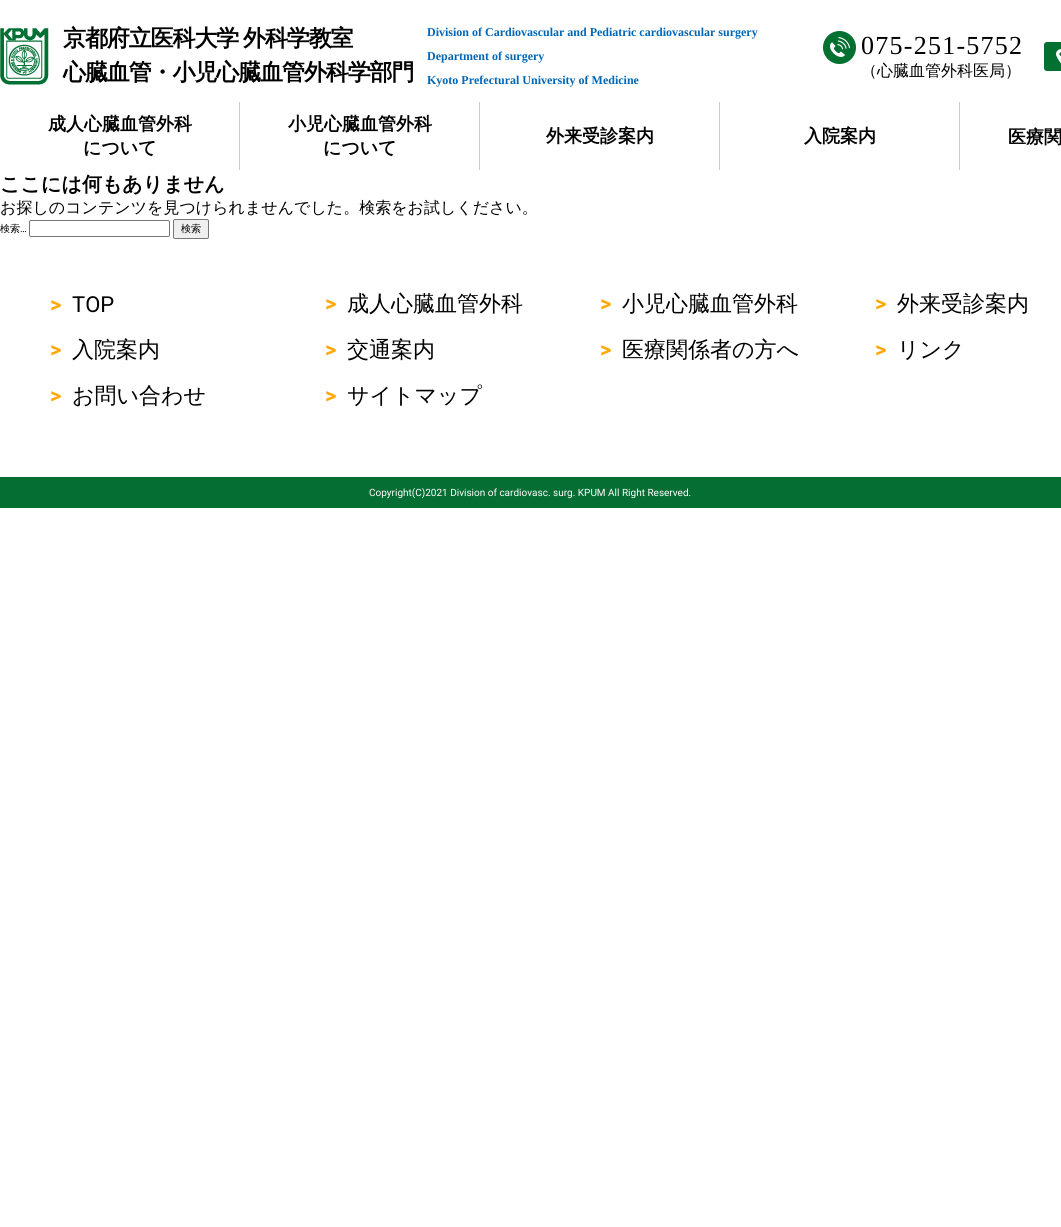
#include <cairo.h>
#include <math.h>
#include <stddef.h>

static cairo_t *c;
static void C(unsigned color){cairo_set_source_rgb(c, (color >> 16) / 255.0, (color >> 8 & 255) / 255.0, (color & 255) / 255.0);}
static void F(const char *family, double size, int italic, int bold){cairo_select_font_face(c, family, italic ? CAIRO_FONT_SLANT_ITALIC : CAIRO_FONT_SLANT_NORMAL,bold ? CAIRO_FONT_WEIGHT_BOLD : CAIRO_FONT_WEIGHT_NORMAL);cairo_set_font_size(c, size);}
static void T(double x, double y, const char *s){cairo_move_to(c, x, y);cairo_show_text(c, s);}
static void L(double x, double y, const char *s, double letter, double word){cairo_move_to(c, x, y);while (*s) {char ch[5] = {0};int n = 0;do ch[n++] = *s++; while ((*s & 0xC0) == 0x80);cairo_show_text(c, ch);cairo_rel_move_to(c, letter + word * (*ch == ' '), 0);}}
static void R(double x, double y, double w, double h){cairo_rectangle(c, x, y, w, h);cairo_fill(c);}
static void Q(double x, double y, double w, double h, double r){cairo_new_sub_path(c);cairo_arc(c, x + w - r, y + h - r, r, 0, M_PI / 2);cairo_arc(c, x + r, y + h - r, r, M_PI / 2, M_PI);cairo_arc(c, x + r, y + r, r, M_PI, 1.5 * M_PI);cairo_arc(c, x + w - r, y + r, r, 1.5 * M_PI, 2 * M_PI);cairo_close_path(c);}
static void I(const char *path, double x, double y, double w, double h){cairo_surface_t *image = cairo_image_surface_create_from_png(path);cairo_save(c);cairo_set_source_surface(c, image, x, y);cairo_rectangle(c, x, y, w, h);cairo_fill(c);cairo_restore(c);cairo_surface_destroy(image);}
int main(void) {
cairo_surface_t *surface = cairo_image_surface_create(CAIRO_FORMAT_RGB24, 1061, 1227);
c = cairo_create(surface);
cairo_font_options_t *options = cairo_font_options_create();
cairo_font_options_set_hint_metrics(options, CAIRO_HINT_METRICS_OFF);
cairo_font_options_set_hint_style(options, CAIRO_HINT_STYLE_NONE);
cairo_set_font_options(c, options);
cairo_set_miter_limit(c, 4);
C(0xffffff);
cairo_paint(c);
I("1.png",0,28,49,57);
F("WenQuanYi Zen Hei",23,0,1);
C(0x000000);
L(63,46,"京都府立医科大学 外科学教室",-1.1,-1);
L(63,80,"心臓血管・小児心臓血管外科学部門",-1.1,0);
F("Liberation Serif",12,0,1);
C(0x0066b5);
T(427,36,"Division of Cardiovascular and Pediatric cardiovascular surgery");
T(427,60,"Department of surgery");
T(427,84,"Kyoto Prefectural University of Medicine");
I("2.png",823,31,33,33);
F("Liberation Serif",26,0,0);
C(0x000000);
L(861,54,"075-251-5752",1.25,0);
F("WenQuanYi Zen Hei Medium",16,0,0);
T(861,76,"（心臓血管外科医局）");
I("3.png",1044,42,17,29);
C(0xcccccc);
R(239,102,1,69);
C(0xffffff);
R(239,170,1,1);
F("WenQuanYi Zen Hei",18,0,1);
C(0x000000);
T(48,130,"成人心臓血管外科");
T(83,154,"について");
C(0xcccccc);
R(479,102,1,69);
C(0xffffff);
R(479,170,1,1);
C(0x000000);
T(288,130,"小児心臓血管外科");
T(323,154,"について");
C(0xcccccc);
R(719,102,1,69);
C(0xffffff);
R(719,170,1,1);
C(0x000000);
T(546,142,"外来受診案内");
C(0xcccccc);
R(959,102,1,69);
C(0xffffff);
R(959,170,1,1);
C(0x000000);
T(804,142,"入院案内");
T(1008,143,"医療関");
F("WenQuanYi Zen Hei",20,0,1);
T(0,191,"ここには何もありません");
F("WenQuanYi Zen Hei Medium",16,0,0);
T(0,213,"お探しのコンテンツを見つけられませんでした。検索をお試しください。");
F("WenQuanYi Zen Hei Medium",10,0,0);
T(0,232,"検索");
F("Roboto",10,0,0);
T(20,232,"…");
Q(29.5,220.5,140,16,1.5);
C(0x767676);
cairo_set_line_width(c,1);
cairo_stroke(c);
C(0xefefef);
Q(173.5,219.5,35,19,1.5);
cairo_fill_preserve(c);
C(0x767676);
cairo_stroke(c);
F("WenQuanYi Zen Hei Medium",10,0,0);
C(0x000000);
T(181,232,"検索");
F("Roboto",22,0,1);
C(0xffa802);
T(50,312,">");
F("Roboto",22,0,0);
C(0x000000);
T(72,312,"TOP");
F("Roboto",22,0,1);
C(0xffa802);
T(325,311,">");
F("WenQuanYi Zen Hei Medium",22,0,0);
C(0x000000);
T(347,311,"成人心臓血管外科");
F("Roboto",22,0,1);
C(0xffa802);
T(600,311,">");
F("WenQuanYi Zen Hei Medium",22,0,0);
C(0x000000);
T(622,311,"小児心臓血管外科");
F("Roboto",22,0,1);
C(0xffa802);
T(875,311,">");
F("WenQuanYi Zen Hei Medium",22,0,0);
C(0x000000);
T(897,311,"外来受診案内");
F("Roboto",22,0,1);
C(0xffa802);
T(50,357,">");
F("WenQuanYi Zen Hei Medium",22,0,0);
C(0x000000);
T(72,357,"入院案内");
F("Roboto",22,0,1);
C(0xffa802);
T(325,357,">");
F("WenQuanYi Zen Hei Medium",22,0,0);
C(0x000000);
T(347,357,"交通案内");
F("Roboto",22,0,1);
C(0xffa802);
T(600,357,">");
F("WenQuanYi Zen Hei Medium",22,0,0);
C(0x000000);
T(622,357,"医療関係者の方へ");
F("Roboto",22,0,1);
C(0xffa802);
T(875,357,">");
F("WenQuanYi Zen Hei Medium",22,0,0);
C(0x000000);
T(897,357,"リンク");
F("Roboto",22,0,1);
C(0xffa802);
T(50,403,">");
F("WenQuanYi Zen Hei Medium",22,0,0);
C(0x000000);
T(72,403,"お問い合わせ");
F("Roboto",22,0,1);
C(0xffa802);
T(325,403,">");
F("WenQuanYi Zen Hei Medium",22,0,0);
C(0x000000);
T(347,403,"サイトマップ");
C(0x056e33);
R(0,477,1061,31);
F("Roboto",10,0,0);
C(0xffffff);
T(369,496,"Copyright(C)2021 Division of cardiovasc. surg. KPUM All Right Reserved.");
cairo_surface_write_to_png(surface, "o.png");
cairo_font_options_destroy(options);
cairo_destroy(c);
cairo_surface_destroy(surface);
return 0;
}
